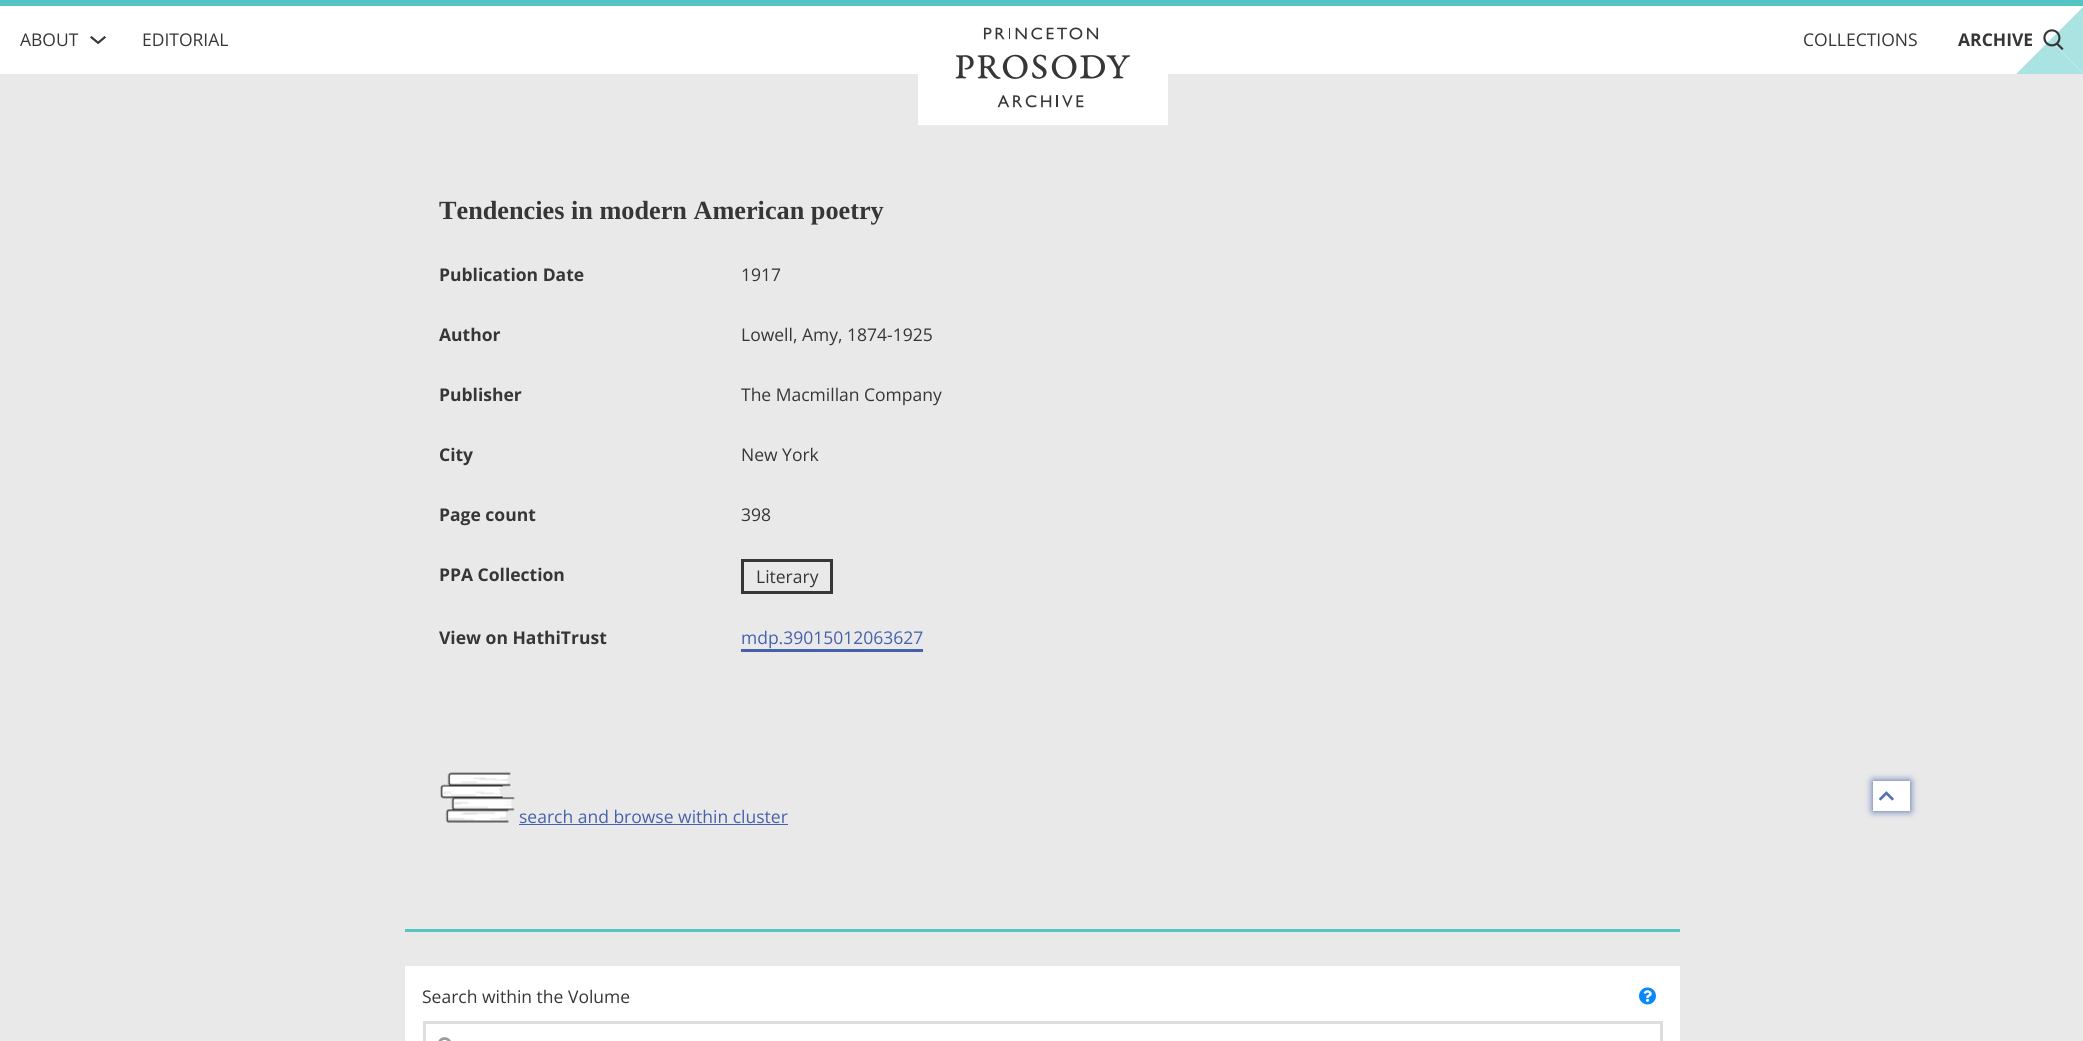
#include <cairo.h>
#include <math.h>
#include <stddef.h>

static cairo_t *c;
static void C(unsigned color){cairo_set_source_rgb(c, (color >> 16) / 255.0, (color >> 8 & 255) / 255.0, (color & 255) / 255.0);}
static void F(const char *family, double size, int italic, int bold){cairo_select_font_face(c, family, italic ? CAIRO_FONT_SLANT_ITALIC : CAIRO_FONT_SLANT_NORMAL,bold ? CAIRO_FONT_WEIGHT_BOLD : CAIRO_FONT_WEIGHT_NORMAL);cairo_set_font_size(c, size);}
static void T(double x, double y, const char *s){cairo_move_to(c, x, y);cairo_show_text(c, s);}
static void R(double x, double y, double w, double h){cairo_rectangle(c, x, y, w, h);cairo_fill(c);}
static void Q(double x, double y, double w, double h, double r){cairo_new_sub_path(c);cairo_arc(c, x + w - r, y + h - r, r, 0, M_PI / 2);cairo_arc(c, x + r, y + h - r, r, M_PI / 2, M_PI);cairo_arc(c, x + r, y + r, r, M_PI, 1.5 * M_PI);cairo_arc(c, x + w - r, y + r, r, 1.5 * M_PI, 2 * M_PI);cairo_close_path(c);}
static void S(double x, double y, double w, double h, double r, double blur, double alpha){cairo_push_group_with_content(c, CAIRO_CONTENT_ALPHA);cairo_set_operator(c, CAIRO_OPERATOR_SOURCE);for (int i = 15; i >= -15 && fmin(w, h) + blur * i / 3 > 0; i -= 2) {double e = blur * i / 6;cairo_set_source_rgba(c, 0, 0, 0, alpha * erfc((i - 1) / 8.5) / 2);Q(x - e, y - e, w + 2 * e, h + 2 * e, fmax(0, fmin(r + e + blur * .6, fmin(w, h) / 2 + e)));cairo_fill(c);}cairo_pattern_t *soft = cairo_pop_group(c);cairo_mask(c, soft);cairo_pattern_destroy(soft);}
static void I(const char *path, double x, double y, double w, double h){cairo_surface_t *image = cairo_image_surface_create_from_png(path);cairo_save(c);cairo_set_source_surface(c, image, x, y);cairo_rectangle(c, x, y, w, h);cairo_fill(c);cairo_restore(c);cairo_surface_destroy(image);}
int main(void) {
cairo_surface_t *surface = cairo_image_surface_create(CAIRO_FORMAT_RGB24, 2083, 1041);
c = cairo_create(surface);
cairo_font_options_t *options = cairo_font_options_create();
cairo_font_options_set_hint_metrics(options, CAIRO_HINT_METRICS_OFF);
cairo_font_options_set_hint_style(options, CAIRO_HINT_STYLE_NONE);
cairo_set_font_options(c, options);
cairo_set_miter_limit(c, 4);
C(0xe9e9e9);
cairo_paint(c);
C(0xffffff);
R(0,6,2083,68);
C(0x57c4c4);
R(0,0,2083,6);
F("Open Sans",17.5,0,0);
C(0x363636);
T(20,46,"ABOUT");
I("1.png",90,36,16,9);
T(142,46,"EDITORIAL");
C(0xffffff);
R(918,74,250,51);
I("2.png",955,27,176,81);
C(0x363636);
T(1803,46,"COLLECTIONS");
C(0xabe2e2);
cairo_new_path(c);
cairo_move_to(c,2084,6);
cairo_line_to(c,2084,74);
cairo_line_to(c,2050,40);
cairo_close_path(c);
cairo_fill(c);
cairo_new_path(c);
cairo_move_to(c,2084,74);
cairo_line_to(c,2016,74);
cairo_line_to(c,2050,40);
cairo_close_path(c);
cairo_fill(c);
F("Open Sans",17.5,0,1);
C(0x363636);
T(1958,46,"ARCHIVE");
I("3.png",2043,29,21,21);
C(0x57c4c4);
R(405,929,1275,3);
F("Liberation Serif",26.25,0,1);
C(0x363636);
T(439,219,"Tendencies in modern American poetry");
F("Open Sans",17.5,0,1);
T(439,281,"Publication Date");
F("Open Sans",17.5,0,0);
T(741,281,"1917");
F("Open Sans",17.5,0,1);
T(439,341,"Author");
F("Open Sans",17.5,0,0);
T(741,341,"Lowell, Amy, 1874-1925");
F("Open Sans",17.5,0,1);
T(439,401,"Publisher");
F("Open Sans",17.5,0,0);
T(741,401,"The Macmillan Company");
F("Open Sans",17.5,0,1);
T(439,461,"City");
F("Open Sans",17.5,0,0);
T(741,461,"New York");
F("Open Sans",17.5,0,1);
T(439,521,"Page count");
F("Open Sans",17.5,0,0);
T(741,521,"398");
F("Open Sans",17.5,0,1);
T(439,581,"PPA Collection");
cairo_rectangle(c,742.5,560.5,89,32);
cairo_set_line_width(c,3);
cairo_stroke(c);
F("Open Sans",17.5,0,0);
T(756,583,"Literary");
F("Open Sans",17.5,0,1);
T(439,644,"View on HathiTrust");
F("Open Sans",17.5,0,0);
C(0x4661ac);
T(741,644,"mdp.39015012063627");
R(741,649,182,3);
I("4.png",440,772,75,51);
T(519,823,"search and browse within cluster");
R(519,824,269,1);
C(0x4661ac);
S(1873,781,37,30,0,4,1);
C(0xffffff);
R(1873,781,37,30);
I("5.png",1879,791,15,10);
R(405,966,1275,75);
C(0x363636);
T(422,1003,"Search within the Volume");
cairo_rectangle(c,424.5,1022.5,1237,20);
C(0xdedede);
cairo_stroke(c);
I("6.png",438,1037,13,4);
I("7.png",1639,987,17,18);
cairo_surface_write_to_png(surface, "o.png");
cairo_font_options_destroy(options);
cairo_destroy(c);
cairo_surface_destroy(surface);
return 0;
}
